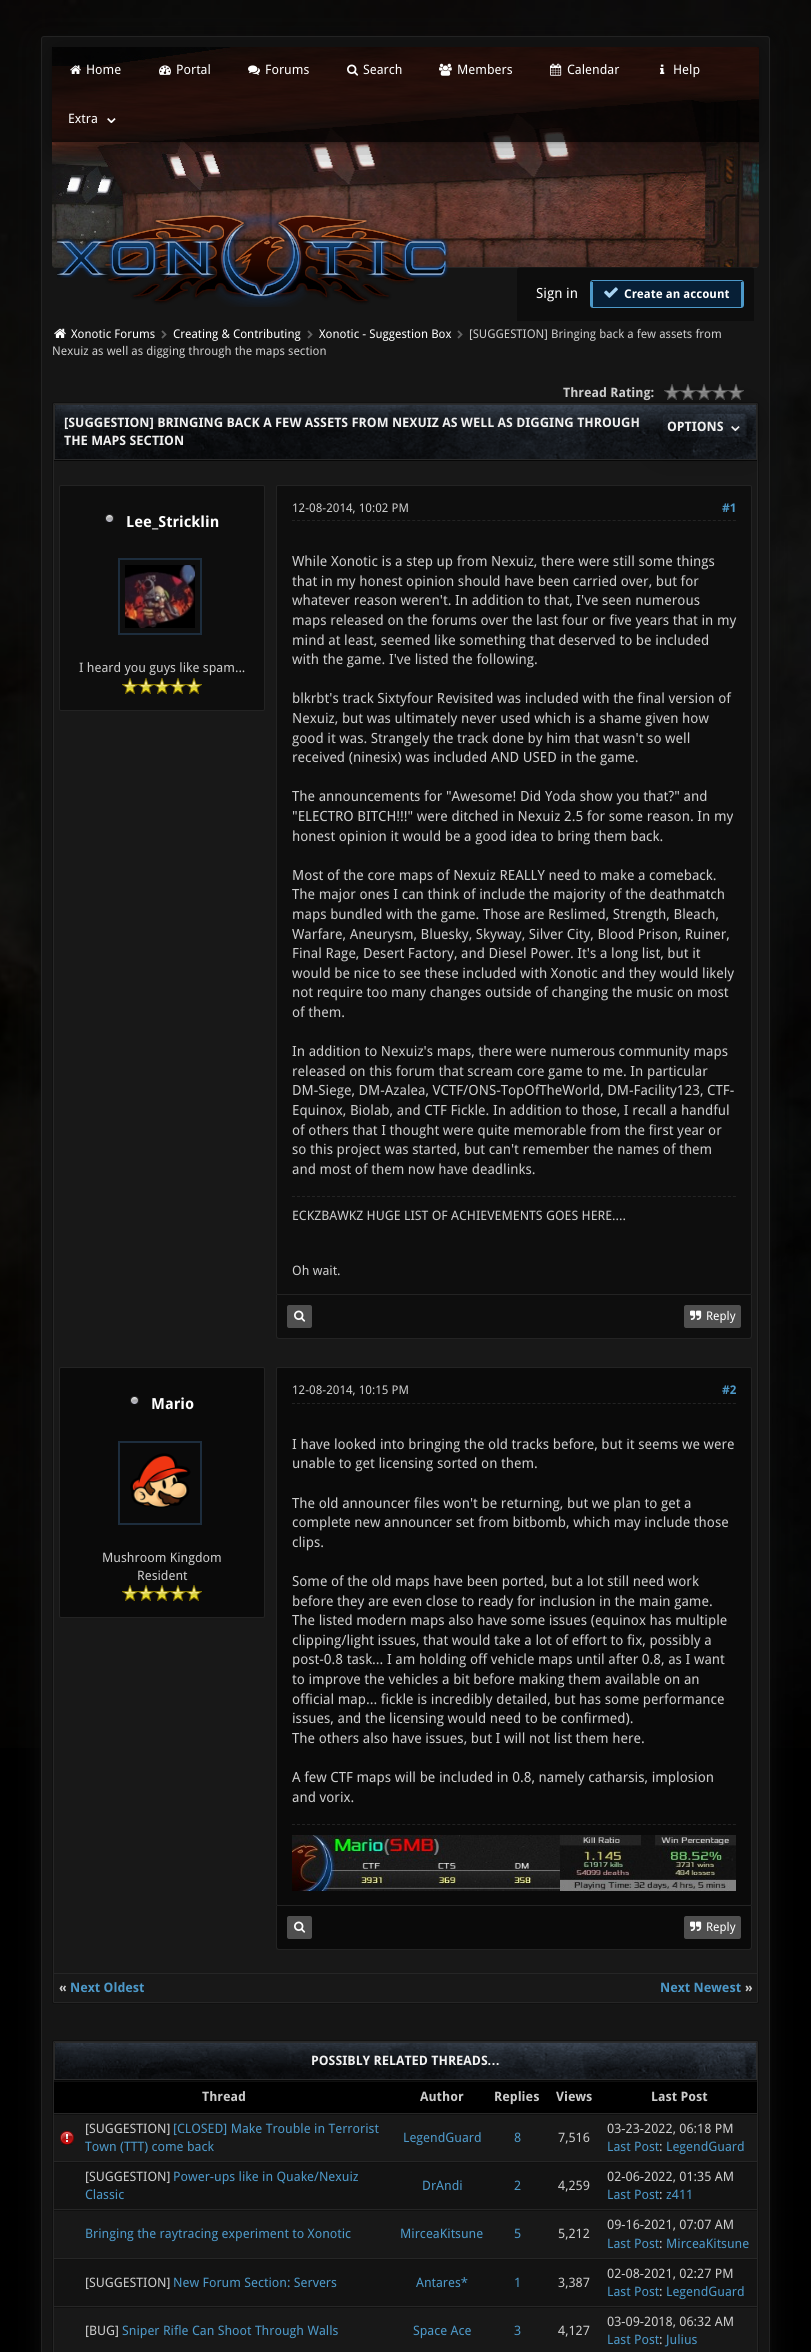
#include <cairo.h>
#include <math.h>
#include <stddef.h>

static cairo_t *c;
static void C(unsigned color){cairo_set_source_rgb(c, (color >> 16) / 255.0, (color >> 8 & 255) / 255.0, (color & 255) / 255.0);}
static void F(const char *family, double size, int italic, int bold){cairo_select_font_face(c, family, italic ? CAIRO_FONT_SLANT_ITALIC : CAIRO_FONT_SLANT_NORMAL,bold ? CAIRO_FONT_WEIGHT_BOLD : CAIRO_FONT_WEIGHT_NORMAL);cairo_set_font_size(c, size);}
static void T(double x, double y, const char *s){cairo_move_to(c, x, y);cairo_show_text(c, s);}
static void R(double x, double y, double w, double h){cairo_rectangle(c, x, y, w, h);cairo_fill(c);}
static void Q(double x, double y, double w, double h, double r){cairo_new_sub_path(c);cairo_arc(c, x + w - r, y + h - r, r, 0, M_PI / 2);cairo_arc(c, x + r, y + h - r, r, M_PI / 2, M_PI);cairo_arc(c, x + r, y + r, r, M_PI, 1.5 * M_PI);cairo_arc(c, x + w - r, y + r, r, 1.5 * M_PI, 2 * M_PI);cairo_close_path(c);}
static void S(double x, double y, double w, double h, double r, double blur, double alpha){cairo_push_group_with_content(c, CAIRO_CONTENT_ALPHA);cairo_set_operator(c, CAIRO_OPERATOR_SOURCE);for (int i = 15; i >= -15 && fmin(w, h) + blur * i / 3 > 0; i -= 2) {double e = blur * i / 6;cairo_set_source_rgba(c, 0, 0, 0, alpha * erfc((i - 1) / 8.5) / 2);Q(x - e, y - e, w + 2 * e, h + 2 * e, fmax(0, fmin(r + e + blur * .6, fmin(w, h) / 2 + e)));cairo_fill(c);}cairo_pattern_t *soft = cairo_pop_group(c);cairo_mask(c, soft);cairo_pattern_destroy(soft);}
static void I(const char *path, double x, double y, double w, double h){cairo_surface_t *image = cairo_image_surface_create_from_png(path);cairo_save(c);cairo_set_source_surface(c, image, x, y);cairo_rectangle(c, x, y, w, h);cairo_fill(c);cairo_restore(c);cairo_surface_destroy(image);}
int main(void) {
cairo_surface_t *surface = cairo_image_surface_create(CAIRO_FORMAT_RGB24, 811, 2352);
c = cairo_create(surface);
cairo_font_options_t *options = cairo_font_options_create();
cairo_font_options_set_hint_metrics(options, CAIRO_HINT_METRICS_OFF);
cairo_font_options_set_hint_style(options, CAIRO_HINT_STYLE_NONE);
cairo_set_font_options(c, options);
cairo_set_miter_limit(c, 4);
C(0x000000);
cairo_paint(c);
I("1.png",0,0,811,1748);
C(0x0d0d0d);
S(41,41,729,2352,3,12.5,1);
C(0x151515);
Q(42,37,727,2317,2);
cairo_fill(c);
Q(41.5,36.5,728,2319,2.5);
C(0x232323);
cairo_set_line_width(c,1);
cairo_stroke(c);
I("9.png",52,47,707,221);
cairo_set_source_rgba(c,0,0,0,0.8);
R(52,47,707,95);
cairo_save(c);
cairo_set_fill_rule(c,CAIRO_FILL_RULE_EVEN_ODD);
cairo_new_path(c);
cairo_move_to(c,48,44);
cairo_line_to(c,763,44);
cairo_line_to(c,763,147);
cairo_line_to(c,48,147);
cairo_close_path(c);
cairo_move_to(c,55,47);
cairo_line_to(c,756,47);
cairo_curve_to(c,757.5,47,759,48.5,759,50);
cairo_line_to(c,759,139);
cairo_curve_to(c,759,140.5,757.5,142,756,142);
cairo_line_to(c,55,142);
cairo_curve_to(c,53.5,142,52,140.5,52,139);
cairo_line_to(c,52,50);
cairo_curve_to(c,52,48.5,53.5,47,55,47);
cairo_close_path(c);
cairo_clip(c);
C(0x000000);
S(52,48,707,95,3,1,.2);
cairo_restore(c);
cairo_save(c);
Q(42,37,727,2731,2);
cairo_clip(c);
cairo_set_fill_rule(c,CAIRO_FILL_RULE_EVEN_ODD);
cairo_new_path(c);
cairo_move_to(c,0,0);
cairo_line_to(c,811,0);
cairo_line_to(c,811,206);
cairo_line_to(c,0,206);
cairo_close_path(c);
cairo_move_to(c,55,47);
cairo_line_to(c,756,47);
cairo_curve_to(c,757.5,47,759,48.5,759,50);
cairo_line_to(c,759,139);
cairo_curve_to(c,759,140.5,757.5,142,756,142);
cairo_line_to(c,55,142);
cairo_curve_to(c,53.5,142,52,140.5,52,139);
cairo_line_to(c,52,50);
cairo_curve_to(c,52,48.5,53.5,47,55,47);
cairo_close_path(c);
cairo_clip(c);
C(0x000000);
S(52,50,707,95,3,20,.5);
cairo_restore(c);
I("2.png",70,65,11,9);
F("Droid Sans",13,0,0);
C(0xffffff);
T(86,74,"Home");
I("3.png",159,65,12,10);
T(176,74,"Portal");
I("4.png",248,65,12,10);
T(265,74,"Forums");
I("5.png",347,64,12,12);
T(363,74,"Search");
I("6.png",439,63,13,13);
T(457,74,"Members");
I("7.png",550,63,12,13);
T(567,74,"Calendar");
I("8.png",660,64,5,10);
T(673,74,"Help");
T(68,123,"Extra");
F("DejaVu Sans",20,0,0);
T(103,123,"⌄");
C(0x262626);
R(54,267,703,1);
I("10.png",57,211,392,96);
cairo_set_source_rgba(c,0,0,0,0.4);
cairo_new_path(c);
cairo_move_to(c,520,267);
cairo_line_to(c,751,267);
cairo_curve_to(c,752.5,267,754,268.5,754,270);
cairo_line_to(c,754,321);
cairo_line_to(c,517,321);
cairo_line_to(c,517,270);
cairo_curve_to(c,517,268.5,518.5,267,520,267);
cairo_close_path(c);
cairo_fill(c);
F("Droid Sans",14,0,0);
C(0xffffff);
T(536,298,"Sign in");
C(0x071f36);
R(593,281,148,26);
Q(590.5,280.5,153,27,2.5);
C(0x4d99c9);
cairo_stroke(c);
R(741,282,2,25);
R(591,282,2,25);
I("11.png",604,287,14,11);
F("Droid Sans",12,0,1);
C(0xffffff);
T(624,298,"Create an account");
I("12.png",54,328,12,10);
F("Droid Sans",12,0,0);
T(71,338,"Xonotic Forums");
I("13.png",161,330,6,9);
T(173,338,"Creating & Contributing");
I("13.png",307,330,6,9);
T(319,338,"Xonotic - Suggestion Box");
I("13.png",457,330,6,9);
C(0xcccccc);
T(469,338,"[SUGGESTION] Bringing back a few assets from");
T(52,355,"Nexuiz as well as digging through the maps section");
F("Droid Sans",13,0,1);
T(563,397,"Thread Rating:");
I("14.png",664,384,80,16);
C(0x181818);
Q(53.5,403.5,704,1599,.5);
cairo_fill_preserve(c);
C(0x262626);
cairo_stroke(c);
Q(52.5,402.5,706,1601,1.5);
C(0x101010);
cairo_stroke(c);
I("15.png",54,404,703,55);
cairo_new_path(c);
cairo_move_to(c,56,404.5);
cairo_line_to(c,755,404.5);
cairo_curve_to(c,756,404.5,756.5,405,756.5,406);
cairo_line_to(c,756.5,459.5);
cairo_line_to(c,54.5,459.5);
cairo_line_to(c,54.5,406);
cairo_curve_to(c,54.5,405,55,404.5,56,404.5);
cairo_close_path(c);
C(0x2a2a2a);
cairo_stroke(c);
C(0x070707);
R(54,460,703,1);
C(0xf1f1f1);
T(64,427,"[SUGGESTION] BRINGING BACK A FEW ASSETS FROM NEXUIZ AS WELL AS DIGGING THROUGH");
T(64,445,"THE MAPS SECTION");
C(0x0e0e0e);
Q(276.5,485.5,475,809,1.5);
cairo_fill_preserve(c);
C(0x232323);
cairo_stroke(c);
cairo_save(c);
Q(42,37,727,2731,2);
cairo_clip(c);
cairo_set_fill_rule(c,CAIRO_FILL_RULE_EVEN_ODD);
cairo_new_path(c);
cairo_move_to(c,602,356);
cairo_line_to(c,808,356);
cairo_line_to(c,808,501);
cairo_line_to(c,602,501);
cairo_close_path(c);
cairo_move_to(c,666,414);
cairo_line_to(c,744,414);
cairo_curve_to(c,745.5,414,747,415.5,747,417);
cairo_line_to(c,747,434);
cairo_curve_to(c,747,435.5,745.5,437,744,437);
cairo_line_to(c,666,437);
cairo_curve_to(c,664.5,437,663,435.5,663,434);
cairo_line_to(c,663,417);
cairo_curve_to(c,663,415.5,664.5,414,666,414);
cairo_close_path(c);
cairo_clip(c);
C(0x000000);
S(663,417,84,23,3,20,.5);
cairo_restore(c);
C(0xf1f1f1);
T(667,431,"OPTIONS");
F("DejaVu Sans",20,0,0);
T(727,431,"⌄");
C(0x0e0e0e);
Q(59.5,485.5,205,225,1.5);
cairo_fill_preserve(c);
C(0x232323);
cairo_stroke(c);
I("16.png",105,514,9,8);
F("Droid Sans",15.25,0,1);
C(0xffffff);
T(126,527,"Lee_Stricklin");
cairo_rectangle(c,119,559,82,75);
C(0x1d2d3d);
cairo_set_line_width(c,2);
cairo_stroke(c);
I("17.png",125,565,70,63);
F("Droid Sans",13,0,0);
C(0xcccccc);
T(79,672,"I heard you guys like spam...");
I("18.png",122,678,16,16);
I("18.png",138,678,16,16);
I("18.png",154,678,16,16);
I("18.png",170,678,16,16);
I("18.png",186,678,16,16);
cairo_new_path(c);
cairo_move_to(c,292,520.5);
cairo_line_to(c,736,520.5);
C(0x232323);
cairo_set_line_width(c,1);
cairo_set_dash(c,(double[]){3,2.01},2,0);
cairo_stroke(c);
F("Droid Sans",12,0,0);
C(0xcccccc);
T(292,512,"12-08-2014, 10:02 PM");
F("Droid Sans",12,0,1);
C(0x4d99c9);
T(722,512,"#1");
F("Droid Sans",14,0,0);
C(0xcccccc);
T(292,566,"While Xonotic is a step up from Nexuiz, there were still some things");
T(292,586,"that in my honest opinion should have been carried over, but for");
T(292,605,"whatever reason weren't. In addition to that, I've seen numerous");
T(292,625,"maps released on the forums over the last four or five years that in my");
T(292,645,"mind at least, seemed like something that deserved to be included");
T(292,664,"with the game. I've listed the following.");
T(292,703,"blkrbt's track Sixtyfour Revisited was included with the final version of");
T(292,723,"Nexuiz, but was ultimately never used which is a shame given how");
T(292,743,"good it was. Strangely the track done by him that wasn't so well");
T(292,762,"received (ninesix) was included AND USED in the game.");
T(292,801,"The announcements for \"Awesome! Did Yoda show you that?\" and");
T(292,821,"\"ELECTRO BITCH!!!\" were ditched in Nexuiz 2.5 for some reason. In my");
T(292,841,"honest opinion it would be a good idea to bring them back.");
T(292,880,"Most of the core maps of Nexuiz REALLY need to make a comeback.");
T(292,899,"The major ones I can think of include the majority of the deathmatch");
T(292,919,"maps bundled with the game. Those are Reslimed, Strength, Bleach,");
T(292,939,"Warfare, Aneurysm, Bluesky, Skyway, Silver City, Blood Prison, Ruiner,");
T(292,958,"Final Rage, Desert Factory, and Diesel Power. It's a long list, but it");
T(292,978,"would be nice to see these included with Xonotic and they would likely");
T(292,997,"not require too many changes outside of changing the music on most");
T(292,1017,"of them.");
T(292,1056,"In addition to Nexuiz's maps, there were numerous community maps");
T(292,1076,"released on this forum that scream core game to me. In particular");
T(292,1095,"DM-Siege, DM-Azalea, VCTF/ONS-TopOfTheWorld, DM-Facility123, CTF-");
T(292,1115,"Equinox, Biolab, and CTF Fickle. In addition to those, I recall a handful");
T(292,1135,"of others that I thought were quite memorable from the first year or");
T(292,1154,"so this project was started, but can't remember the names of them");
T(292,1174,"and most of them now have deadlinks.");
cairo_new_path(c);
cairo_move_to(c,292,1196.5);
cairo_line_to(c,736,1196.5);
C(0x232323);
cairo_stroke(c);
F("Droid Sans",13,0,0);
C(0xcccccc);
T(292,1220,"ECKZBAWKZ HUGE LIST OF ACHIEVEMENTS GOES HERE....");
T(292,1275,"Oh wait.");
C(0x0e0e0e);
cairo_new_path(c);
cairo_move_to(c,276,1295);
cairo_line_to(c,752,1295);
cairo_line_to(c,752,1336);
cairo_curve_to(c,752,1337.5,750.5,1339,749,1339);
cairo_line_to(c,279,1339);
cairo_curve_to(c,277.5,1339,276,1337.5,276,1336);
cairo_close_path(c);
cairo_fill(c);
C(0x232323);
cairo_set_fill_rule(c,CAIRO_FILL_RULE_EVEN_ODD);
cairo_new_path(c);
cairo_move_to(c,276,1295);
cairo_line_to(c,752,1295);
cairo_line_to(c,752,1336);
cairo_curve_to(c,752,1338,751,1339,749,1339);
cairo_line_to(c,279,1339);
cairo_curve_to(c,277,1339,276,1338,276,1336);
cairo_close_path(c);
cairo_move_to(c,277,1295);
cairo_line_to(c,751,1295);
cairo_line_to(c,751,1336);
cairo_curve_to(c,751,1337,750,1338,749,1338);
cairo_line_to(c,279,1338);
cairo_curve_to(c,278,1338,277,1337,277,1336);
cairo_close_path(c);
cairo_fill(c);
C(0x4f4f4f);
cairo_set_fill_rule(c,CAIRO_FILL_RULE_WINDING);
cairo_new_path(c);
cairo_move_to(c,289,1305);
cairo_line_to(c,310,1305);
cairo_curve_to(c,311,1305,312,1306,312,1307);
cairo_line_to(c,312,1326);
cairo_curve_to(c,312,1327,311,1328,310,1328);
cairo_line_to(c,289,1328);
cairo_curve_to(c,288,1328,287,1327,287,1326);
cairo_line_to(c,287,1307);
cairo_curve_to(c,287,1306,288,1305,289,1305);
cairo_close_path(c);
cairo_fill(c);
I("19.png",294,1310,12,12);
cairo_new_path(c);
cairo_move_to(c,686,1305);
cairo_line_to(c,739,1305);
cairo_curve_to(c,740,1305,741,1306,741,1307);
cairo_line_to(c,741,1326);
cairo_curve_to(c,741,1327,740,1328,739,1328);
cairo_line_to(c,686,1328);
cairo_curve_to(c,685,1328,684,1327,684,1326);
cairo_line_to(c,684,1307);
cairo_curve_to(c,684,1306,685,1305,686,1305);
cairo_close_path(c);
cairo_fill(c);
I("20.png",690,1310,12,10);
F("Droid Sans",12,0,0);
C(0xffffff);
T(706,1320,"Reply");
C(0x0a0a0a);
Q(59.5,1367.5,205,250,1.5);
cairo_fill_preserve(c);
C(0x232323);
cairo_set_dash(c,NULL,0,0);
cairo_stroke(c);
I("21.png",130,1396,9,9);
F("Droid Sans",15.25,0,1);
C(0xffffff);
T(151,1409,"Mario");
cairo_rectangle(c,119,1442,82,82);
C(0x1d2d3d);
cairo_set_line_width(c,2);
cairo_stroke(c);
I("22.png",130,1453,61,55);
F("Droid Sans",13,0,0);
C(0xcccccc);
T(102,1562,"Mushroom Kingdom");
T(137,1580,"Resident");
I("23.png",122,1585,16,16);
I("23.png",138,1585,16,16);
I("23.png",154,1585,16,16);
I("23.png",170,1585,16,16);
I("23.png",186,1585,16,16);
C(0x0a0a0a);
Q(276.5,1367.5,475,538,1.5);
cairo_fill_preserve(c);
C(0x232323);
cairo_set_line_width(c,1);
cairo_stroke(c);
cairo_new_path(c);
cairo_move_to(c,292,1403.5);
cairo_line_to(c,736,1403.5);
cairo_set_dash(c,(double[]){3,2.01},2,0);
cairo_stroke(c);
F("Droid Sans",12,0,0);
C(0xcccccc);
T(292,1394,"12-08-2014, 10:15 PM");
F("Droid Sans",12,0,1);
C(0x4d99c9);
T(722,1394,"#2");
F("Droid Sans",14,0,0);
C(0xcccccc);
T(292,1449,"I have looked into bringing the old tracks before, but it seems we were");
T(292,1468,"unable to get licensing sorted on them.");
T(292,1508,"The old announcer files won't be returning, but we plan to get a");
T(292,1527,"complete new announcer set from bitbomb, which may include those");
T(292,1547,"clips.");
T(292,1586,"Some of the old maps have been ported, but a lot still need work");
T(292,1606,"before they are even close to ready for inclusion in the main game.");
T(292,1625,"The listed modern maps also have some issues (equinox has multiple");
T(292,1645,"clipping/light issues, that would take a lot of effort to fix, possibly a");
T(292,1664,"post-0.8 task... I am holding off vehicle maps until after 0.8, as I want");
T(292,1684,"to improve the vehicles a bit before making them available on an");
T(292,1704,"official map... fickle is incredibly detailed, but has some performance");
T(292,1723,"issues, and the licensing would need to be confirmed).");
T(292,1743,"The others also have issues, but I will not list them here.");
T(292,1782,"A few CTF maps will be included in 0.8, namely catharsis, implosion");
T(292,1802,"and vorix.");
cairo_new_path(c);
cairo_move_to(c,292,1824.5);
cairo_line_to(c,736,1824.5);
C(0x232323);
cairo_stroke(c);
I("24.png",292,1835,444,56);
C(0x0a0a0a);
cairo_new_path(c);
cairo_move_to(c,276,1906);
cairo_line_to(c,752,1906);
cairo_line_to(c,752,1947);
cairo_curve_to(c,752,1948.5,750.5,1950,749,1950);
cairo_line_to(c,279,1950);
cairo_curve_to(c,277.5,1950,276,1948.5,276,1947);
cairo_close_path(c);
cairo_fill(c);
C(0x232323);
cairo_set_fill_rule(c,CAIRO_FILL_RULE_EVEN_ODD);
cairo_new_path(c);
cairo_move_to(c,276,1906);
cairo_line_to(c,752,1906);
cairo_line_to(c,752,1947);
cairo_curve_to(c,752,1949,751,1950,749,1950);
cairo_line_to(c,279,1950);
cairo_curve_to(c,277,1950,276,1949,276,1947);
cairo_close_path(c);
cairo_move_to(c,277,1906);
cairo_line_to(c,751,1906);
cairo_line_to(c,751,1947);
cairo_curve_to(c,751,1948,750,1949,749,1949);
cairo_line_to(c,279,1949);
cairo_curve_to(c,278,1949,277,1948,277,1947);
cairo_close_path(c);
cairo_fill(c);
C(0x4f4f4f);
cairo_set_fill_rule(c,CAIRO_FILL_RULE_WINDING);
cairo_new_path(c);
cairo_move_to(c,289,1916);
cairo_line_to(c,310,1916);
cairo_curve_to(c,311,1916,312,1917,312,1918);
cairo_line_to(c,312,1937);
cairo_curve_to(c,312,1938,311,1939,310,1939);
cairo_line_to(c,289,1939);
cairo_curve_to(c,288,1939,287,1938,287,1937);
cairo_line_to(c,287,1918);
cairo_curve_to(c,287,1917,288,1916,289,1916);
cairo_close_path(c);
cairo_fill(c);
I("19.png",294,1921,12,12);
cairo_new_path(c);
cairo_move_to(c,686,1916);
cairo_line_to(c,739,1916);
cairo_curve_to(c,740,1916,741,1917,741,1918);
cairo_line_to(c,741,1937);
cairo_curve_to(c,741,1938,740,1939,739,1939);
cairo_line_to(c,686,1939);
cairo_curve_to(c,685,1939,684,1938,684,1937);
cairo_line_to(c,684,1918);
cairo_curve_to(c,684,1917,685,1916,686,1916);
cairo_close_path(c);
cairo_fill(c);
I("20.png",690,1921,12,10);
F("Droid Sans",12,0,0);
C(0xffffff);
T(706,1931,"Reply");
C(0x262626);
R(54,1973,703,1);
F("Droid Sans",13,0,1);
C(0xcccccc);
T(59,1992,"«");
C(0x4d99c9);
T(70,1992,"Next Oldest");
T(660,1992,"Next Newest");
C(0xcccccc);
T(745,1992,"»");
C(0x181818);
Q(53.5,2041.5,704,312,.5);
cairo_fill_preserve(c);
C(0x262626);
cairo_set_dash(c,NULL,0,0);
cairo_stroke(c);
Q(52.5,2040.5,706,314,1.5);
C(0x101010);
cairo_stroke(c);
I("25.png",54,2042,703,37);
cairo_new_path(c);
cairo_move_to(c,56,2042.5);
cairo_line_to(c,755,2042.5);
cairo_curve_to(c,756,2042.5,756.5,2043,756.5,2044);
cairo_line_to(c,756.5,2079.5);
cairo_line_to(c,54.5,2079.5);
cairo_line_to(c,54.5,2044);
cairo_curve_to(c,54.5,2043,55,2042.5,56,2042.5);
cairo_close_path(c);
C(0x2a2a2a);
cairo_stroke(c);
C(0x070707);
R(54,2080,703,1);
C(0xf1f1f1);
T(311,2065,"POSSIBLY RELATED THREADS");
F("Liberation Sans",13,0,1);
T(487,2065,"…");
C(0x000000);
R(54,2082,703,31);
C(0x101010);
R(54,2081,703,1);
C(0x262626);
R(54,2113,703,1);
F("Droid Sans",13,0,1);
C(0xcccccc);
T(202,2101,"Thread");
T(420,2101,"Author");
T(494,2101,"Replies");
T(556,2101,"Views");
T(651,2101,"Last Post");
C(0x101010);
R(54,2114,703,1);
C(0x262626);
R(54,2161,703,1);
I("26.png",60,2131,14,14);
F("Droid Sans",13,0,0);
C(0xcccccc);
T(85,2133,"[SUGGESTION]");
C(0x4d99c9);
T(173,2133,"[CLOSED] Make Trouble in Terrorist");
T(85,2151,"Town (TTT) come back");
T(403,2142,"LegendGuard");
T(514,2142,"8");
C(0xcccccc);
T(558,2142,"7,516");
T(607,2133,"03-23-2022, 06:18 PM");
C(0x4d99c9);
T(607,2151,"Last Post");
C(0xcccccc);
T(659,2151,":");
C(0x4d99c9);
T(666,2151,"LegendGuard");
C(0x131313);
R(54,2163,703,46);
C(0x101010);
R(54,2162,703,1);
C(0x262626);
R(54,2209,703,1);
C(0xcccccc);
T(85,2181,"[SUGGESTION]");
C(0x4d99c9);
T(173,2181,"Power-ups like in Quake/Nexuiz");
T(85,2199,"Classic");
T(422,2190,"DrAndi");
T(514,2190,"2");
C(0xcccccc);
T(558,2190,"4,259");
T(607,2181,"02-06-2022, 01:35 AM");
C(0x4d99c9);
T(607,2199,"Last Post");
C(0xcccccc);
T(659,2199,":");
C(0x4d99c9);
T(666,2199,"z411");
C(0x101010);
R(54,2210,703,1);
C(0x262626);
R(54,2258,703,1);
C(0x4d99c9);
T(85,2238,"Bringing the raytracing experiment to Xonotic");
T(400,2238,"MirceaKitsune");
T(514,2238,"5");
C(0xcccccc);
T(558,2238,"5,212");
T(607,2229,"09-16-2021, 07:07 AM");
C(0x4d99c9);
T(607,2248,"Last Post");
C(0xcccccc);
T(659,2248,":");
C(0x4d99c9);
T(666,2248,"MirceaKitsune");
C(0x131313);
R(54,2260,703,46);
C(0x101010);
R(54,2259,703,1);
C(0x262626);
R(54,2306,703,1);
C(0xcccccc);
T(85,2287,"[SUGGESTION]");
C(0x4d99c9);
T(173,2287,"New Forum Section: Servers");
T(416,2287,"Antares*");
T(514,2287,"1");
C(0xcccccc);
T(558,2287,"3,387");
T(607,2278,"02-08-2021, 02:27 PM");
C(0x4d99c9);
T(607,2296,"Last Post");
C(0xcccccc);
T(659,2296,":");
C(0x4d99c9);
T(666,2296,"LegendGuard");
C(0x101010);
R(54,2307,703,1);
C(0xcccccc);
T(85,2335,"[BUG]");
C(0x4d99c9);
T(122,2335,"Sniper Rifle Can Shoot Through Walls");
T(413,2335,"Space Ace");
T(514,2335,"3");
C(0xcccccc);
T(558,2335,"4,127");
T(607,2326,"03-09-2018, 06:32 AM");
C(0x4d99c9);
T(607,2344,"Last Post");
C(0xcccccc);
T(659,2344,":");
C(0x4d99c9);
T(666,2344,"Julius");
cairo_surface_write_to_png(surface, "o.png");
cairo_font_options_destroy(options);
cairo_destroy(c);
cairo_surface_destroy(surface);
return 0;
}
